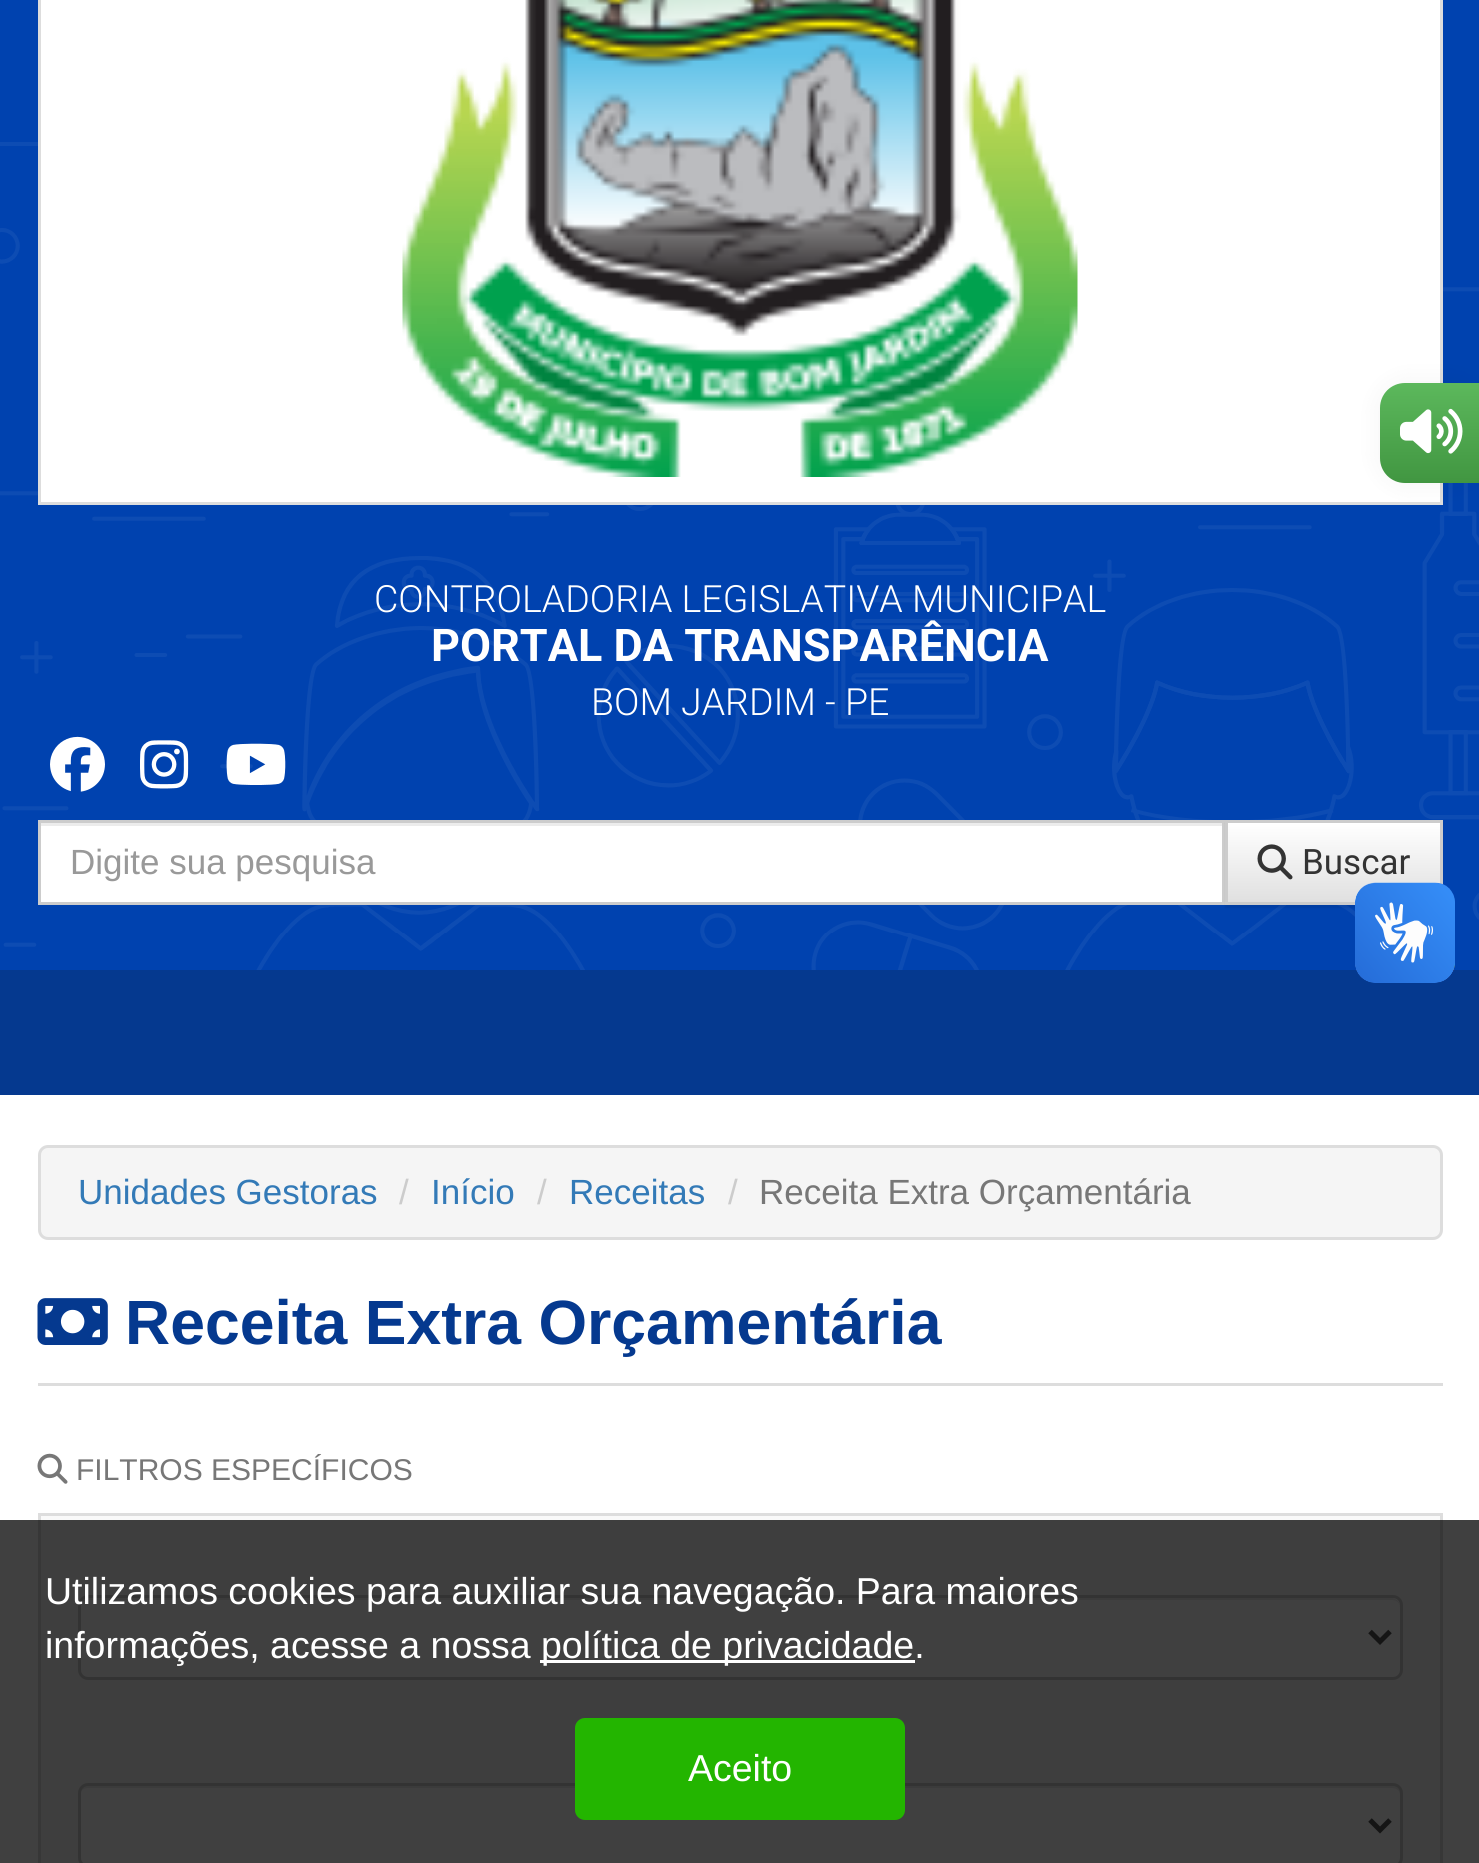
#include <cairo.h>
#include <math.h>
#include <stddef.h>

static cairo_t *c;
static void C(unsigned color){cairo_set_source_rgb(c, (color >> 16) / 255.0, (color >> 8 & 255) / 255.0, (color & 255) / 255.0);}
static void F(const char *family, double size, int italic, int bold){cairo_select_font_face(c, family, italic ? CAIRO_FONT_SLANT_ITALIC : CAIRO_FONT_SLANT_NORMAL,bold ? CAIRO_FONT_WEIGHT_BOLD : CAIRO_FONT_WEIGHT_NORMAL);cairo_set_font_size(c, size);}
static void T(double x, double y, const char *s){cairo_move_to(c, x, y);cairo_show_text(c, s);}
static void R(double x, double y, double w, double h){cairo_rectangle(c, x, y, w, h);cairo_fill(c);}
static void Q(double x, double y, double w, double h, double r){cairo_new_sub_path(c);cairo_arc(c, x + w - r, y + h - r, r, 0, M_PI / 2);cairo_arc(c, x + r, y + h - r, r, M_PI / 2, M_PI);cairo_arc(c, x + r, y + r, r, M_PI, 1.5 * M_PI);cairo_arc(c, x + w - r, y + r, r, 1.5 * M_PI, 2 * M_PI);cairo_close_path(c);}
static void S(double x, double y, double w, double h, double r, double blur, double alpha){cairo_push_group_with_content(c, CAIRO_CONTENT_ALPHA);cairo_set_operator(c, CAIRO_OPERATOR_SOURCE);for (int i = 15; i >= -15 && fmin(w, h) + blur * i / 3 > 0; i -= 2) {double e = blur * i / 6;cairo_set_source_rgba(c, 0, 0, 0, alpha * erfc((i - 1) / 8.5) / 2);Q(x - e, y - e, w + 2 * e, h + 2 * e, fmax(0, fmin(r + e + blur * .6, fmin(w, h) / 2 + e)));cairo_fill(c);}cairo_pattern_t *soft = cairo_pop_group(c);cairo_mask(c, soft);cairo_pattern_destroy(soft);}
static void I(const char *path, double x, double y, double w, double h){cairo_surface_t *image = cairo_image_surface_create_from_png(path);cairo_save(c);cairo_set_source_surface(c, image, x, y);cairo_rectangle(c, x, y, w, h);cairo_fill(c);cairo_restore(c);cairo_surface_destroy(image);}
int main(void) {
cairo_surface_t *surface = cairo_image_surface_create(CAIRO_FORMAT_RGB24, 1479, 1863);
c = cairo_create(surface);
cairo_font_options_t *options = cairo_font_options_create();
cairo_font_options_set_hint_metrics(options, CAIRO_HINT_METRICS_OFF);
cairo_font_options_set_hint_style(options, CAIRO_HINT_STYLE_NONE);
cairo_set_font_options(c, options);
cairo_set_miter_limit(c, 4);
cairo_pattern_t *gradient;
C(0xffffff);
cairo_paint(c);
C(0x0042af);
R(0,0,1479,970);
I("2.png",0,142,1479,828);
C(0xffffff);
cairo_rectangle(c,39.5,-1.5,1402,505);
cairo_fill_preserve(c);
C(0xdddddd);
cairo_set_line_width(c,3);
cairo_stroke(c);
C(0x000000);
S(1380,383,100,100,25,12.5,.05);
gradient = cairo_pattern_create_linear(1430,383,1430,483);
cairo_pattern_add_color_stop_rgba(gradient,0,0.361,0.722,0.361,1);
cairo_pattern_add_color_stop_rgba(gradient,1,0.255,0.588,0.255,1);
cairo_set_source(c,gradient);
cairo_pattern_destroy(gradient);
cairo_new_path(c);
cairo_move_to(c,1405,383);
cairo_line_to(c,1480,383);
cairo_line_to(c,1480,483);
cairo_line_to(c,1405,483);
cairo_curve_to(c,1391,483,1380,472,1380,458);
cairo_line_to(c,1380,408);
cairo_curve_to(c,1380,394,1391,383,1405,383);
cairo_close_path(c);
cairo_fill(c);
I("1.png",1400,408,63,46);
I("3.png",402,0,676,477);
F("Roboto Light",37.5,0,0);
C(0xffffff);
T(374,612,"CONTROLADORIA LEGISLATIVA MUNICIPAL");
F("Roboto",45,0,1);
T(431,661,"PORTAL DA TRANSPARÊNCIA");
F("Roboto Light",37.5,0,0);
T(591,715,"BOM JARDIM - PE");
I("4.png",50,736,55,56);
I("5.png",140,740,49,49);
I("6.png",226,743,60,42);
R(41,826,1181,76);
C(0xececec);
R(40,823,1183,3);
cairo_rectangle(c,39.5,821.5,1184,82);
C(0xcccccc);
cairo_stroke(c);
F("Liberation Sans",35,0,0);
C(0x999999);
T(70,874,"Digite sua pesquisa");
C(0x000000);
S(1225,823,218,85,0,1,.07);
gradient = cairo_pattern_create_linear(1334,823,1334,903);
cairo_pattern_add_color_stop_rgba(gradient,0,1,1,1,1);
cairo_pattern_add_color_stop_rgba(gradient,1,0.878,0.878,0.878,1);
cairo_set_source(c,gradient);
cairo_pattern_destroy(gradient);
R(1228,823,212,79);
cairo_rectangle(c,1226.5,821.5,215,82);
C(0xcccccc);
cairo_stroke(c);
I("7.png",1257,844,36,36);
F("Roboto",35,0,0);
C(0x333333);
T(1302,874,"Buscar");
C(0x05398f);
R(0,970,1479,125);
I("8.png",1355,882,100,101);
I("9.png",1355,883,100,100);
C(0xf5f5f5);
Q(39.5,1146.5,1402,92,8.5);
cairo_fill_preserve(c);
C(0xdddddd);
cairo_stroke(c);
F("Liberation Sans",35,0,0);
C(0x337ab7);
T(78,1204,"Unidades Gestoras");
C(0xcccccc);
T(399,1204,"/");
C(0x337ab7);
T(431,1204,"Início");
C(0xcccccc);
T(537,1204,"/");
C(0x337ab7);
T(569,1204,"Receitas");
C(0xcccccc);
T(728,1204,"/");
C(0x777777);
T(759,1204,"Receita Extra Orçamentária");
C(0xdddddd);
R(38,1383,1405,3);
I("10.png",37,1298,71,47);
F("Liberation Sans",62.5,0,1);
C(0x05398f);
T(125,1344,"Receita Extra Orçamentária");
I("11.png",37,1453,31,31);
F("Liberation Sans",30,0,0);
C(0x777777);
T(76,1480,"FILTROS ESPECÍFICOS");
C(0xf9f9f9);
cairo_rectangle(c,39.5,1514.5,1402,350);
cairo_fill_preserve(c);
C(0xdddddd);
cairo_stroke(c);
C(0xffffff);
Q(78,1595,1325,85,10);
cairo_fill(c);
C(0xececec);
cairo_new_path(c);
cairo_move_to(c,88,1600);
cairo_line_to(c,1392,1600);
cairo_curve_to(c,1397,1600,1400,1603,1400,1608);
cairo_line_to(c,1400,1606);
cairo_curve_to(c,1400,1602,1396,1598,1392,1598);
cairo_line_to(c,88,1598);
cairo_curve_to(c,84,1598,80,1602,80,1606);
cairo_line_to(c,80,1608);
cairo_curve_to(c,80,1603,83,1600,88,1600);
cairo_close_path(c);
cairo_fill(c);
Q(79.5,1596.5,1322,82,8.5);
C(0xcccccc);
cairo_stroke(c);
cairo_new_path(c);
cairo_move_to(c,1370,1631.5);
cairo_line_to(c,1380,1641.5);
cairo_line_to(c,1390,1631.5);
C(0x555555);
cairo_set_line_width(c,5);
cairo_stroke(c);
C(0xffffff);
Q(78,1783,1325,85,10);
cairo_fill(c);
C(0xececec);
cairo_new_path(c);
cairo_move_to(c,88,1788);
cairo_line_to(c,1392,1788);
cairo_curve_to(c,1397,1788,1400,1791,1400,1795);
cairo_line_to(c,1400,1793);
cairo_curve_to(c,1400,1789,1396,1785,1392,1785);
cairo_line_to(c,88,1785);
cairo_curve_to(c,84,1785,80,1789,80,1793);
cairo_line_to(c,80,1795);
cairo_curve_to(c,80,1791,83,1788,88,1788);
cairo_close_path(c);
cairo_fill(c);
Q(79.5,1784.5,1322,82,8.5);
C(0xcccccc);
cairo_set_line_width(c,3);
cairo_stroke(c);
cairo_new_path(c);
cairo_move_to(c,1370,1820);
cairo_line_to(c,1380,1830);
cairo_line_to(c,1390,1820);
C(0x555555);
cairo_set_line_width(c,5);
cairo_stroke(c);
cairo_set_source_rgba(c,0,0,0,0.75);
R(0,1520,1479,343);
F("Liberation Sans",37.5,0,0);
C(0xffffff);
T(45,1604,"Utilizamos cookies para auxiliar sua navegação. Para maiores");
T(45,1658,"informações, acesse a nossa");
R(540,1660,375,3);
T(541,1658,"política de privacidade.");
C(0x23b500);
Q(575,1718,330,102,10);
cairo_fill(c);
C(0xffffff);
T(688,1781,"Aceito");
cairo_surface_write_to_png(surface, "o.png");
cairo_font_options_destroy(options);
cairo_destroy(c);
cairo_surface_destroy(surface);
return 0;
}
